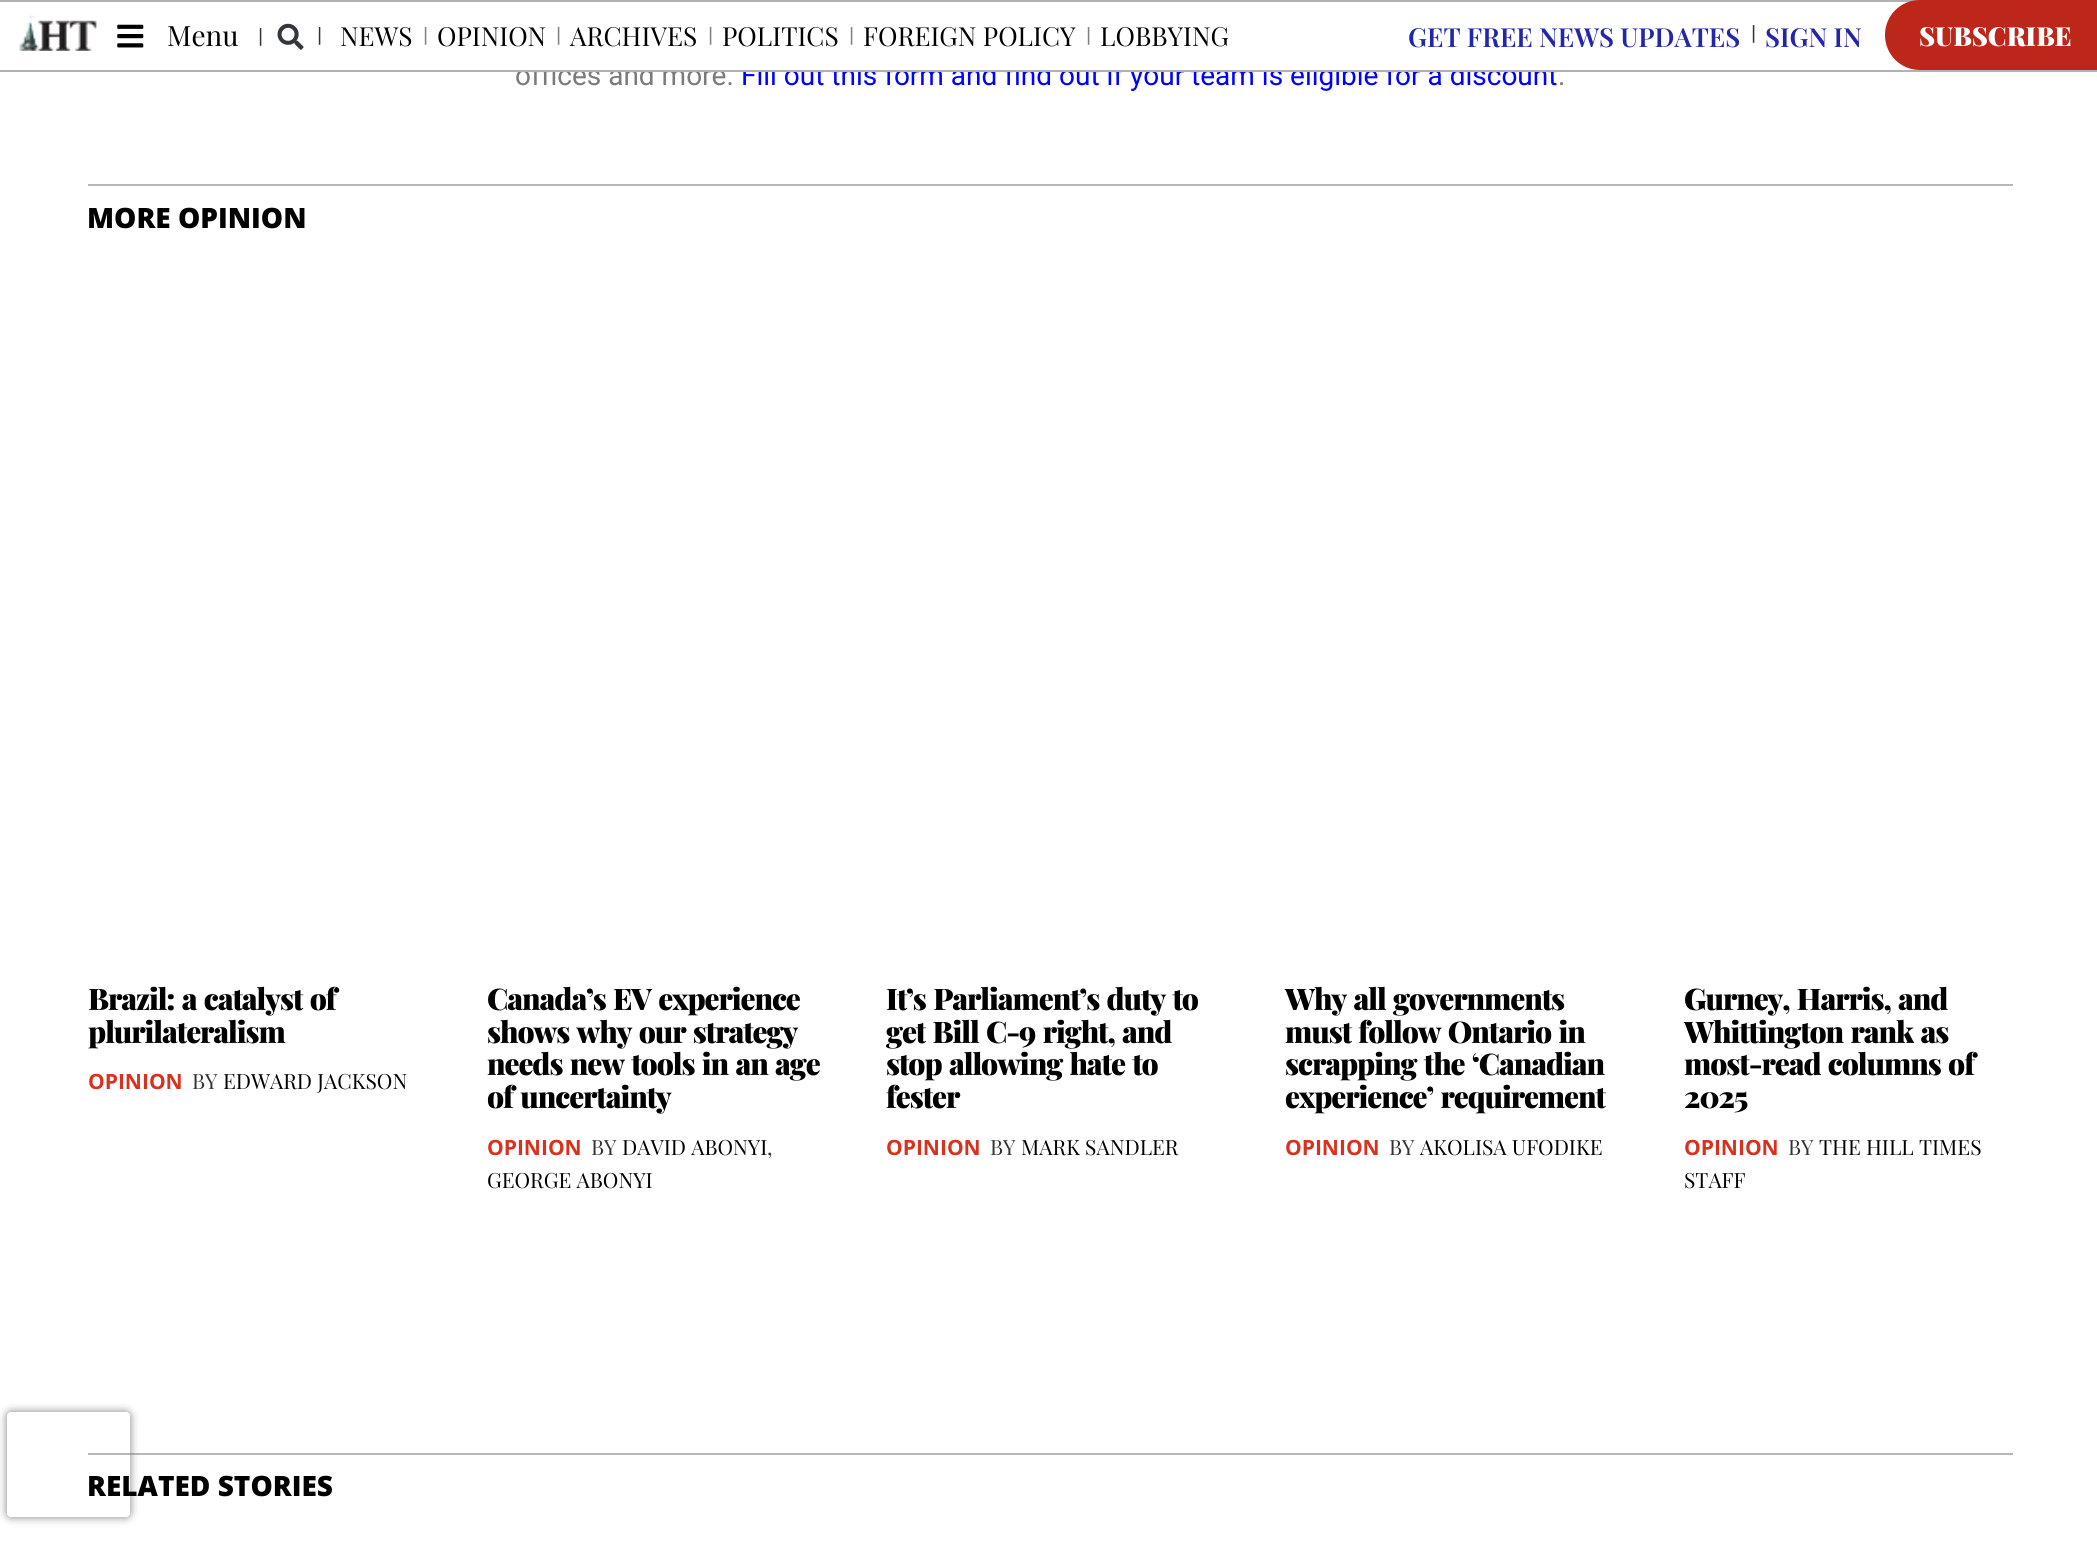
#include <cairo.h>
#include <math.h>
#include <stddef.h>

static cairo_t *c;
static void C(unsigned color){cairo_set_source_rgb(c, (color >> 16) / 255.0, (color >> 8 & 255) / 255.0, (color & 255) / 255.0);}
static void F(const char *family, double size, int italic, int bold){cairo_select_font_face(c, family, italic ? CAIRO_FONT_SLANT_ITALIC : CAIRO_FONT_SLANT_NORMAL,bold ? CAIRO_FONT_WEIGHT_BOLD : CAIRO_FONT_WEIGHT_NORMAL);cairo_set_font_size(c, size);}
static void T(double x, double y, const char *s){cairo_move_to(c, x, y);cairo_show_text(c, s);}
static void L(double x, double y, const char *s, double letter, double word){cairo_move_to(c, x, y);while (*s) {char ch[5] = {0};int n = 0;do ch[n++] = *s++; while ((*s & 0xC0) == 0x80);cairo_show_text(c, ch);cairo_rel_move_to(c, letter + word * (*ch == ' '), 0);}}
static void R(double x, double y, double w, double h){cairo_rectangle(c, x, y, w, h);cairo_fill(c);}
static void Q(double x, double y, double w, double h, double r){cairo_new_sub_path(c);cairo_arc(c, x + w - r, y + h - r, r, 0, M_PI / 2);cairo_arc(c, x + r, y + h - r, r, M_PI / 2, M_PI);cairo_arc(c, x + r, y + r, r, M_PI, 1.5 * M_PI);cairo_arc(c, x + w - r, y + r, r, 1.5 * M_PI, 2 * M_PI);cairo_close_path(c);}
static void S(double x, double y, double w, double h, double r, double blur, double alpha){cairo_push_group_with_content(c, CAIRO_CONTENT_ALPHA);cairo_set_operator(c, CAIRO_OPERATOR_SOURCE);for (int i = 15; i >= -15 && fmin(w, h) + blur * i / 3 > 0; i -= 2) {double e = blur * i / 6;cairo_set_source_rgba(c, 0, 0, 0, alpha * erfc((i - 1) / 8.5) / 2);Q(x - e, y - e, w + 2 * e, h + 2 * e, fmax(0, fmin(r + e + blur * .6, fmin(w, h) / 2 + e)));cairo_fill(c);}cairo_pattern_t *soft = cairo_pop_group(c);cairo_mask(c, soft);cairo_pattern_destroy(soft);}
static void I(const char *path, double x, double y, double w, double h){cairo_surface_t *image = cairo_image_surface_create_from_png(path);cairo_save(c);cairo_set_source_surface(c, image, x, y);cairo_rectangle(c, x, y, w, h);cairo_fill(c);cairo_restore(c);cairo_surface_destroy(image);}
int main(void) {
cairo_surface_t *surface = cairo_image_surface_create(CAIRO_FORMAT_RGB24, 2097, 1541);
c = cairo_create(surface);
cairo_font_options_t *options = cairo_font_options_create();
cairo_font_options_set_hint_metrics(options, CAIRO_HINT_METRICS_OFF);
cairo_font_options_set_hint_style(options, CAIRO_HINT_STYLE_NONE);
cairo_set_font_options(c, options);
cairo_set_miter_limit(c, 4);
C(0xffffff);
cairo_paint(c);
F("Roboto",28,0,0);
C(0x7a7a7a);
T(515,85,"offices and more.");
C(0x0000ff);
T(741,85,"Fill out this form and find out if your team is eligible for a discount");
C(0xffffff);
R(523,63,1031,7);
C(0xb1b1b1);
R(0,0,1920,2);
R(0,70,2097,2);
I("1.png",19,15,78,36);
I("2.png",117,24,27,24);
F("Playfair Display",28,0,0);
C(0x000000);
T(167,46,"Menu");
F("Roboto",21,0,0);
C(0x333333);
T(258,43,"|");
I("3.png",277,23,27,27);
T(317,42,"|");
F("Playfair Display",26.25,0,0);
C(0x000000);
T(340,46,"NEWS");
F("Roboto",21,0,0);
C(0x808080);
T(423,42,"|");
F("Playfair Display",26.25,0,0);
C(0x000000);
T(437,46,"OPINION");
F("Roboto",21,0,0);
C(0x808080);
T(556,42,"|");
F("Playfair Display",26.25,0,0);
C(0x000000);
T(570,46,"ARCHIVES");
F("Roboto",21,0,0);
C(0x808080);
T(708,42,"|");
F("Playfair Display",26.25,0,0);
C(0x000000);
T(722,46,"POLITICS");
F("Roboto",21,0,0);
C(0x808080);
T(849,42,"|");
F("Playfair Display",26.25,0,0);
C(0x000000);
T(863,46,"FOREIGN POLICY");
F("Roboto",21,0,0);
C(0x808080);
T(1086,42,"|");
F("Playfair Display",26.25,0,0);
C(0x000000);
T(1100,46,"LOBBYING");
F("Playfair Display SemiBold",26.25,0,0);
C(0x2127a8);
T(1408,47,"GET FREE NEWS UPDATES");
F("Roboto",21,0,0);
C(0x333333);
T(1751,40,"|");
F("Playfair Display SemiBold",26.25,0,0);
C(0x2127a8);
T(1765,47,"SIGN IN");
C(0xbd271a);
cairo_new_path(c);
cairo_move_to(c,1920,0);
cairo_line_to(c,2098,0);
cairo_line_to(c,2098,70);
cairo_line_to(c,1920,70);
cairo_curve_to(c,1900.5,70,1885,54.5,1885,35);
cairo_curve_to(c,1885,15.5,1900.5,0,1920,0);
cairo_close_path(c);
cairo_fill(c);
F("Playfair Display Black",26.25,0,0);
C(0xffffff);
T(1919,46,"SUBSCRIBE");
C(0xb7b7b7);
R(88,1453,1925,2);
cairo_save(c);
cairo_set_fill_rule(c,CAIRO_FILL_RULE_EVEN_ODD);
cairo_new_path(c);
cairo_move_to(c,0,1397);
cairo_line_to(c,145,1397);
cairo_line_to(c,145,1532);
cairo_line_to(c,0,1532);
cairo_close_path(c);
cairo_move_to(c,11,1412);
cairo_line_to(c,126,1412);
cairo_curve_to(c,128,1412,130,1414,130,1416);
cairo_line_to(c,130,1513);
cairo_curve_to(c,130,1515,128,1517,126,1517);
cairo_line_to(c,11,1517);
cairo_curve_to(c,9,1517,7,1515,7,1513);
cairo_line_to(c,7,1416);
cairo_curve_to(c,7,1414,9,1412,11,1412);
cairo_close_path(c);
cairo_clip(c);
C(0x808080);
S(7,1412,123,105,4,4.5,1);
cairo_restore(c);
F("Roboto",28,0,0);
C(0x7a7a7a);
T(1558,85,".");
C(0xb7b7b7);
R(88,184,1925,2);
F("Open Sans ExtraBold",28,0,0);
C(0x000000);
T(87,228,"MORE OPINION");
F("Playfair Display Black",29.75,0,0);
L(88,1010,"Brazil: a catalyst of",-1.05,1.75);
L(88,1043,"plurilateralism",-1.05,0);
F("Open Sans",21,0,1);
C(0xd7321e);
T(88,1089,"OPINION");
F("Playfair Display",21,0,0);
C(0x333333);
T(192,1089,"BY");
C(0x000000);
T(223,1089,"EDWARD JACKSON");
F("Playfair Display Black",29.75,0,0);
L(487,1010,"Canada’s EV experience",-1.05,1.75);
L(487,1043,"shows why our strategy",-1.05,1.75);
L(487,1075,"needs new tools in an age",-1.05,1.75);
L(487,1108,"of uncertainty",-1.05,1.75);
F("Open Sans",21,0,1);
C(0xd7321e);
T(487,1155,"OPINION");
F("Playfair Display",21,0,0);
C(0x333333);
T(591,1155,"BY");
C(0x000000);
T(622,1155,"DAVID ABONYI");
C(0x333333);
T(767,1155,",");
C(0x000000);
T(487,1188,"GEORGE ABONYI");
F("Playfair Display Black",29.75,0,0);
L(886,1010,"It’s Parliament’s duty to",-1.05,1.75);
L(886,1043,"get Bill C-9 right, and",-1.05,1.75);
L(886,1075,"stop allowing hate to",-1.05,1.75);
L(886,1108,"fester",-1.05,0);
F("Open Sans",21,0,1);
C(0xd7321e);
T(886,1155,"OPINION");
F("Playfair Display",21,0,0);
C(0x333333);
T(990,1155,"BY");
C(0x000000);
T(1021,1155,"MARK SANDLER");
F("Playfair Display Black",29.75,0,0);
L(1285,1010,"Why all governments",-1.05,1.75);
L(1285,1043,"must follow Ontario in",-1.05,1.75);
L(1285,1075,"scrapping the ‘Canadian",-1.05,1.75);
L(1285,1108,"experience’ requirement",-1.05,1.75);
F("Open Sans",21,0,1);
C(0xd7321e);
T(1285,1155,"OPINION");
F("Playfair Display",21,0,0);
C(0x333333);
T(1389,1155,"BY");
C(0x000000);
T(1420,1155,"AKOLISA UFODIKE");
F("Playfair Display Black",29.75,0,0);
L(1684,1010,"Gurney, Harris, and",-1.05,1.75);
L(1684,1043,"Whittington rank as",-1.05,1.75);
L(1684,1075,"most-read columns of",-1.05,1.75);
L(1684,1108,"2025",-1.05,0);
F("Open Sans",21,0,1);
C(0xd7321e);
T(1684,1155,"OPINION");
F("Playfair Display",21,0,0);
C(0x333333);
T(1788,1155,"BY");
C(0x000000);
T(1819,1155,"THE HILL TIMES");
T(1684,1188,"STAFF");
F("Open Sans ExtraBold",28,0,0);
T(87,1496,"RELATED STORIES");
cairo_surface_write_to_png(surface, "o.png");
cairo_font_options_destroy(options);
cairo_destroy(c);
cairo_surface_destroy(surface);
return 0;
}
